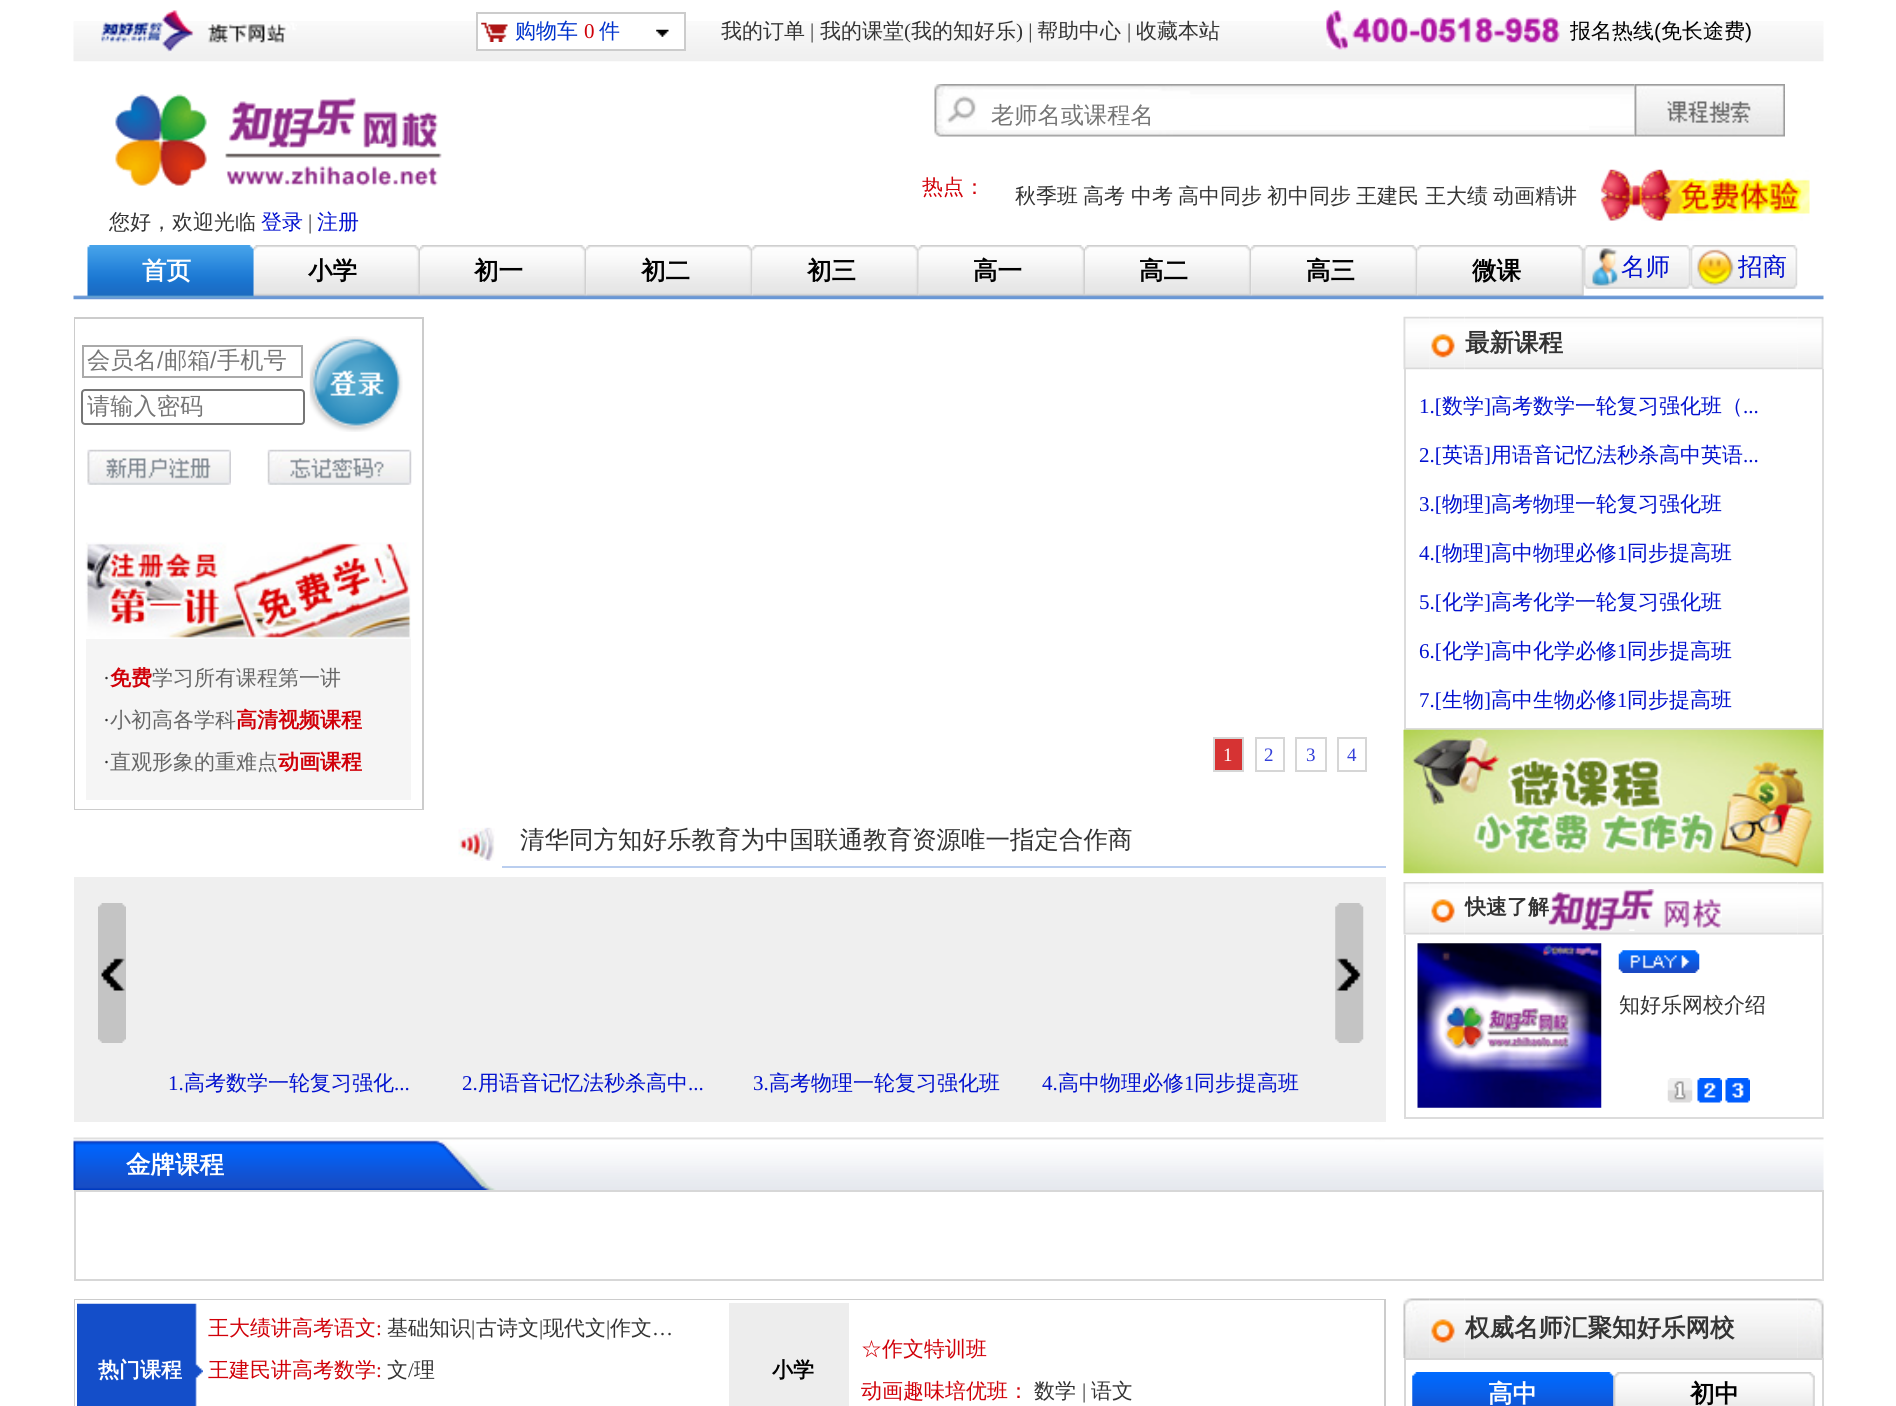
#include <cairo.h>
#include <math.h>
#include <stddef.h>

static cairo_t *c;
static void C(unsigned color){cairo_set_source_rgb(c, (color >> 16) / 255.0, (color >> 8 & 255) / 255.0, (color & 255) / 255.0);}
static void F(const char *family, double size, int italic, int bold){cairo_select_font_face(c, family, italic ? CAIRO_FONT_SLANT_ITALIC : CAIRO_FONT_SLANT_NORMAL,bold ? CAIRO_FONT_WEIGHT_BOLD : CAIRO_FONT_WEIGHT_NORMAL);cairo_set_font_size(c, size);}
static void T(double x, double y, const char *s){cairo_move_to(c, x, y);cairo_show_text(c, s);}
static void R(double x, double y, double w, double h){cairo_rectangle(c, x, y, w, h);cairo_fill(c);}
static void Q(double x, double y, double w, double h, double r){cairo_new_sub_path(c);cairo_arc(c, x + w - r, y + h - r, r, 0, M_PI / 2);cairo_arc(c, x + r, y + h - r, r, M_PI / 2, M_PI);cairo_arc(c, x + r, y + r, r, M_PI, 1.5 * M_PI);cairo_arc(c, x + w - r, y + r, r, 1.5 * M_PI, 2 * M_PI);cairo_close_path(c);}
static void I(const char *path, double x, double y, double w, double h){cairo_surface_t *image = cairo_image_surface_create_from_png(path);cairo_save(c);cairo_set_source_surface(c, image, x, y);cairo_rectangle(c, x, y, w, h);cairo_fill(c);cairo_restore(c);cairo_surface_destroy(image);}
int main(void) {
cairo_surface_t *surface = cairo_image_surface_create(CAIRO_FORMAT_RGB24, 1896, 1406);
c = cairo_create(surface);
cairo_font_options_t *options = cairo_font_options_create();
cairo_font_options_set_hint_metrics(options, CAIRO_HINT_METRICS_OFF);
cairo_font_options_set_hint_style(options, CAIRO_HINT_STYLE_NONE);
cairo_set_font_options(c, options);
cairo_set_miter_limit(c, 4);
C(0xffffff);
cairo_paint(c);
I("1.png",73,21,1751,41);
I("2.png",101,10,196,43);
C(0xcccccc);
R(476,12,210,39);
C(0xffffff);
R(478,14,206,35);
I("3.png",481,22,27,20);
F("WenQuanYi Zen Hei Medium",21,0,0);
C(0x0033cc);
T(515,38,"购物车");
F("Liberation Serif",21,0,0);
C(0xd00008);
T(584,38,"0");
F("WenQuanYi Zen Hei Medium",21,0,0);
C(0x0033cc);
T(599,38,"件");
I("4.png",656,29,13,8);
C(0x333333);
T(721,38,"我的订单");
F("Liberation Serif",21,0,0);
T(810,38,"|");
F("WenQuanYi Zen Hei Medium",21,0,0);
T(820,38,"我的课堂");
F("Liberation Serif",21,0,0);
T(904,38,"(");
F("WenQuanYi Zen Hei Medium",21,0,0);
T(911,38,"我的知好乐");
F("Liberation Serif",21,0,0);
T(1016,38,") |");
F("WenQuanYi Zen Hei Medium",21,0,0);
T(1037,38,"帮助中心");
F("Liberation Serif",21,0,0);
T(1127,38,"|");
F("WenQuanYi Zen Hei Medium",21,0,0);
T(1136,38,"收藏本站");
I("5.png",1326,10,234,40);
C(0x000000);
T(1570,38,"报名热线");
F("Liberation Sans",21,0,0);
T(1654,38,"(");
F("WenQuanYi Zen Hei Medium",21,0,0);
T(1661,38,"免长途费");
F("Liberation Sans",21,0,0);
T(1745,38,")");
I("6.png",934,84,701,53);
C(0xffffff);
R(987,126,602,4);
F("WenQuanYi Zen Hei Medium",23.25,0,0);
C(0x757575);
T(991,123,"老师名或课程名");
I("7.png",1634,84,151,53);
F("WenQuanYi Zen Hei Medium",21,0,0);
C(0xd00008);
T(922,194,"热点：");
C(0x333333);
T(1015,203,"秋季班");
T(1083,203,"高考");
T(1131,203,"中考");
T(1178,203,"高中同步");
T(1267,203,"初中同步");
T(1356,203,"王建民");
T(1425,203,"王大绩");
T(1493,203,"动画精讲");
I("8.png",1600,169,210,52);
I("9.png",115,94,327,92);
T(109,229,"您好，欢迎光临");
C(0x0110cf);
T(261,229,"登录");
F("Liberation Serif",21,0,0);
C(0x333333);
T(308,229,"|");
F("WenQuanYi Zen Hei Medium",21,0,0);
C(0x0110cf);
T(317,229,"注册");
I("10.png",73,295,1751,5);
I("11.png",87,245,167,53);
F("WenQuanYi Zen Hei",24.5,0,1);
C(0xffffff);
T(142,279,"首页");
I("12.png",253,245,167,52);
C(0x000000);
T(308,279,"小学");
I("13.png",420,245,167,52);
T(474,279,"初一");
I("14.png",586,245,167,52);
T(641,279,"初二");
I("15.png",752,245,167,52);
T(807,279,"初三");
I("16.png",918,245,167,52);
T(973,279,"高一");
I("13.png",1085,245,167,52);
T(1139,279,"高二");
I("14.png",1251,245,167,52);
T(1306,279,"高三");
I("15.png",1417,245,167,52);
T(1472,279,"微课");
I("17.png",1583,245,108,44);
F("WenQuanYi Zen Hei Medium",24.5,0,0);
C(0x0110cf);
T(1621,275,"名师");
I("18.png",1690,245,108,44);
T(1738,275,"招商");
C(0xcccccc);
R(74,317,350,493);
C(0xffffff);
R(75,319,347,490);
cairo_rectangle(c,83,346,219,31);
C(0xaaaaaa);
cairo_stroke(c);
F("WenQuanYi Zen Hei Medium",23.25,0,0);
C(0x757575);
T(87,368,"会员名");
F("Liberation Sans",23.25,0,0);
T(157,368,"/");
F("WenQuanYi Zen Hei Medium",23.25,0,0);
T(164,368,"邮箱");
F("Liberation Sans",23.25,0,0);
T(210,368,"/");
F("WenQuanYi Zen Hei Medium",23.25,0,0);
T(217,368,"手机号");
Q(82,390,222,34,3);
C(0x767676);
cairo_stroke(c);
C(0x757575);
T(87,414,"请输入密码");
I("19.png",309,336,94,96);
I("20.png",87,449,144,36);
I("21.png",267,449,145,36);
I("22.png",85,542,326,97);
C(0xf5f5f5);
R(86,639,325,161);
F("Liberation Serif",21,0,0);
C(0x333333);
T(103,685,"·");
F("WenQuanYi Zen Hei",21,0,1);
C(0xd00008);
T(110,685,"免费");
F("WenQuanYi Zen Hei Medium",21,0,0);
C(0x666666);
T(152,685,"学习所有课程第一讲");
F("Liberation Serif",21,0,0);
C(0x333333);
T(103,727,"·");
F("WenQuanYi Zen Hei Medium",21,0,0);
C(0x666666);
T(110,727,"小初高各学科");
F("WenQuanYi Zen Hei",21,0,1);
C(0xd00008);
T(236,727,"高清视频课程");
F("Liberation Serif",21,0,0);
C(0x333333);
T(103,769,"·");
F("WenQuanYi Zen Hei Medium",21,0,0);
C(0x666666);
T(110,769,"直观形象的重难点");
F("WenQuanYi Zen Hei",21,0,1);
C(0xd00008);
T(278,769,"动画课程");
C(0xd63333);
cairo_rectangle(c,1214,738,29,33);
cairo_fill_preserve(c);
C(0xd6d6d6);
cairo_stroke(c);
F("Liberation Serif",19,0,0);
C(0xffffff);
T(1223,761,"1");
cairo_rectangle(c,1256,738,28,33);
C(0xd6d6d6);
cairo_stroke(c);
C(0x3440d9);
T(1264,761,"2");
cairo_rectangle(c,1296,738,30,33);
C(0xd6d6d6);
cairo_stroke(c);
C(0x3440d9);
T(1306,761,"3");
cairo_rectangle(c,1338,738,28,33);
C(0xd6d6d6);
cairo_stroke(c);
C(0x3440d9);
T(1347,761,"4");
I("23.png",458,827,37,34);
C(0xbaceef);
R(502,866,884,2);
F("WenQuanYi Zen Hei Medium",24.5,0,0);
C(0x333333);
T(520,848,"清华同方知好乐教育为中国联通教育资源唯一指定合作商");
C(0xefefef);
R(74,877,1312,245);
I("24.png",98,903,28,140);
I("25.png",1335,903,29,140);
F("Liberation Serif",21,0,0);
C(0x0110cf);
T(168,1090,"1.");
F("WenQuanYi Zen Hei Medium",21,0,0);
T(184,1090,"高考数学一轮复习强化");
F("Liberation Serif",21,0,0);
T(394,1090,"...");
T(462,1090,"2.");
F("WenQuanYi Zen Hei Medium",21,0,0);
T(478,1090,"用语音记忆法秒杀高中");
F("Liberation Serif",21,0,0);
T(688,1090,"...");
T(753,1090,"3.");
F("WenQuanYi Zen Hei Medium",21,0,0);
T(769,1090,"高考物理一轮复习强化班");
F("Liberation Serif",21,0,0);
T(1042,1090,"4.");
F("WenQuanYi Zen Hei Medium",21,0,0);
T(1058,1090,"高中物理必修");
F("Liberation Serif",21,0,0);
T(1184,1090,"1");
F("WenQuanYi Zen Hei Medium",21,0,0);
T(1194,1090,"同步提高班");
I("27.png",1429,316,36,54);
C(0xdcdcdc);
R(1822,369,2,361);
R(1404,728,420,2);
R(1404,369,2,361);
I("26.png",1403,316,27,54);
I("28.png",1431,333,24,25);
I("29.png",1465,316,333,54);
F("WenQuanYi Zen Hei",24.5,0,1);
C(0x333333);
T(1465,351,"最新课程");
I("30.png",1797,316,27,54);
F("Liberation Serif",21,0,0);
C(0x0110cf);
T(1419,413,"1.[");
F("WenQuanYi Zen Hei Medium",21,0,0);
T(1442,413,"数学");
F("Liberation Serif",21,0,0);
T(1484,413,"]");
F("WenQuanYi Zen Hei Medium",21,0,0);
T(1491,413,"高考数学一轮复习强化班（");
F("Liberation Serif",21,0,0);
T(1743,413,"...");
T(1419,462,"2.[");
F("WenQuanYi Zen Hei Medium",21,0,0);
T(1442,462,"英语");
F("Liberation Serif",21,0,0);
T(1484,462,"]");
F("WenQuanYi Zen Hei Medium",21,0,0);
T(1491,462,"用语音记忆法秒杀高中英语");
F("Liberation Serif",21,0,0);
T(1743,462,"...");
T(1419,511,"3.[");
F("WenQuanYi Zen Hei Medium",21,0,0);
T(1442,511,"物理");
F("Liberation Serif",21,0,0);
T(1484,511,"]");
F("WenQuanYi Zen Hei Medium",21,0,0);
T(1491,511,"高考物理一轮复习强化班");
F("Liberation Serif",21,0,0);
T(1419,560,"4.[");
F("WenQuanYi Zen Hei Medium",21,0,0);
T(1442,560,"物理");
F("Liberation Serif",21,0,0);
T(1484,560,"]");
F("WenQuanYi Zen Hei Medium",21,0,0);
T(1491,560,"高中物理必修");
F("Liberation Serif",21,0,0);
T(1617,560,"1");
F("WenQuanYi Zen Hei Medium",21,0,0);
T(1627,560,"同步提高班");
F("Liberation Serif",21,0,0);
T(1419,609,"5.[");
F("WenQuanYi Zen Hei Medium",21,0,0);
T(1442,609,"化学");
F("Liberation Serif",21,0,0);
T(1484,609,"]");
F("WenQuanYi Zen Hei Medium",21,0,0);
T(1491,609,"高考化学一轮复习强化班");
F("Liberation Serif",21,0,0);
T(1419,658,"6.[");
F("WenQuanYi Zen Hei Medium",21,0,0);
T(1442,658,"化学");
F("Liberation Serif",21,0,0);
T(1484,658,"]");
F("WenQuanYi Zen Hei Medium",21,0,0);
T(1491,658,"高中化学必修");
F("Liberation Serif",21,0,0);
T(1617,658,"1");
F("WenQuanYi Zen Hei Medium",21,0,0);
T(1627,658,"同步提高班");
F("Liberation Serif",21,0,0);
T(1419,707,"7.[");
F("WenQuanYi Zen Hei Medium",21,0,0);
T(1442,707,"生物");
F("Liberation Serif",21,0,0);
T(1484,707,"]");
F("WenQuanYi Zen Hei Medium",21,0,0);
T(1491,707,"高中生物必修");
F("Liberation Serif",21,0,0);
T(1617,707,"1");
F("WenQuanYi Zen Hei Medium",21,0,0);
T(1627,707,"同步提高班");
I("31.png",1403,729,421,145);
I("33.png",1429,882,36,53);
I("32.png",1403,882,27,53);
I("34.png",1431,899,24,24);
I("35.png",1465,882,333,53);
F("WenQuanYi Zen Hei",21,0,1);
C(0x333333);
T(1465,914,"快速了解");
I("36.png",1548,889,174,42);
I("37.png",1797,882,27,53);
C(0xdcdcdc);
R(1822,935,2,183);
R(1404,1117,420,2);
R(1404,935,2,183);
I("38.png",1417,943,185,165);
I("39.png",1618,950,82,23);
F("WenQuanYi Zen Hei Medium",21,0,0);
C(0x333333);
T(1619,1012,"知好乐网校介绍");
I("40.png",1667,1078,26,25);
I("41.png",1697,1078,25,25);
I("42.png",1725,1078,25,25);
I("43.png",73,1137,1751,53);
F("WenQuanYi Zen Hei",24.5,0,1);
C(0xffffff);
T(126,1173,"金牌课程");
cairo_rectangle(c,75,1191,1748,89);
C(0xd7d7d7);
cairo_stroke(c);
C(0xcccccc);
R(74,1299,1312,107);
C(0xffffff);
R(75,1300,1309,106);
I("44.png",77,1303,126,103);
F("WenQuanYi Zen Hei",21,0,1);
T(98,1377,"热门课程");
F("WenQuanYi Zen Hei Medium",21,0,0);
C(0xd00008);
T(208,1335,"王大绩讲高考语文");
F("Liberation Serif",21,0,0);
T(376,1335,":");
F("WenQuanYi Zen Hei Medium",21,0,0);
C(0x333333);
T(387,1335,"基础知识");
F("Liberation Serif",21,0,0);
T(471,1335,"|");
F("WenQuanYi Zen Hei Medium",21,0,0);
T(476,1335,"古诗文");
F("Liberation Serif",21,0,0);
T(539,1335,"|");
F("WenQuanYi Zen Hei Medium",21,0,0);
T(543,1335,"现代文");
F("Liberation Serif",21,0,0);
T(606,1335,"|");
F("WenQuanYi Zen Hei Medium",21,0,0);
T(610,1335,"作文");
F("Liberation Serif",21,0,0);
T(652,1335,"…");
F("WenQuanYi Zen Hei Medium",21,0,0);
C(0xd00008);
T(208,1377,"王建民讲高考数学");
F("Liberation Serif",21,0,0);
T(376,1377,":");
F("WenQuanYi Zen Hei Medium",21,0,0);
C(0x333333);
T(387,1377,"文");
F("Liberation Serif",21,0,0);
T(408,1377,"/");
F("WenQuanYi Zen Hei Medium",21,0,0);
T(414,1377,"理");
C(0xededed);
R(729,1303,120,103);
F("WenQuanYi Zen Hei",21,0,1);
C(0x000000);
T(772,1377,"小学");
F("WenQuanYi Zen Hei Medium",21,0,0);
C(0xd00008);
T(861,1356,"☆作文特训班");
T(861,1398,"动画趣味培优班：");
C(0x333333);
T(1034,1398,"数学");
F("Liberation Serif",21,0,0);
T(1082,1398,"|");
F("WenQuanYi Zen Hei Medium",21,0,0);
T(1091,1398,"语文");
I("46.png",1429,1298,36,60);
I("45.png",1403,1298,27,60);
I("47.png",1431,1319,24,24);
I("48.png",1464,1298,334,60);
F("WenQuanYi Zen Hei",24.5,0,1);
T(1465,1336,"权威名师汇聚知好乐网校");
I("49.png",1797,1298,27,60);
cairo_rectangle(c,1405,1359,418,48);
C(0xd7d7d7);
cairo_stroke(c);
I("50.png",1412,1372,202,34);
C(0xffffff);
T(1488,1402,"高中");
I("51.png",1613,1372,202,34);
C(0x000000);
T(1690,1402,"初中");
cairo_surface_write_to_png(surface, "o.png");
cairo_font_options_destroy(options);
cairo_destroy(c);
cairo_surface_destroy(surface);
return 0;
}
